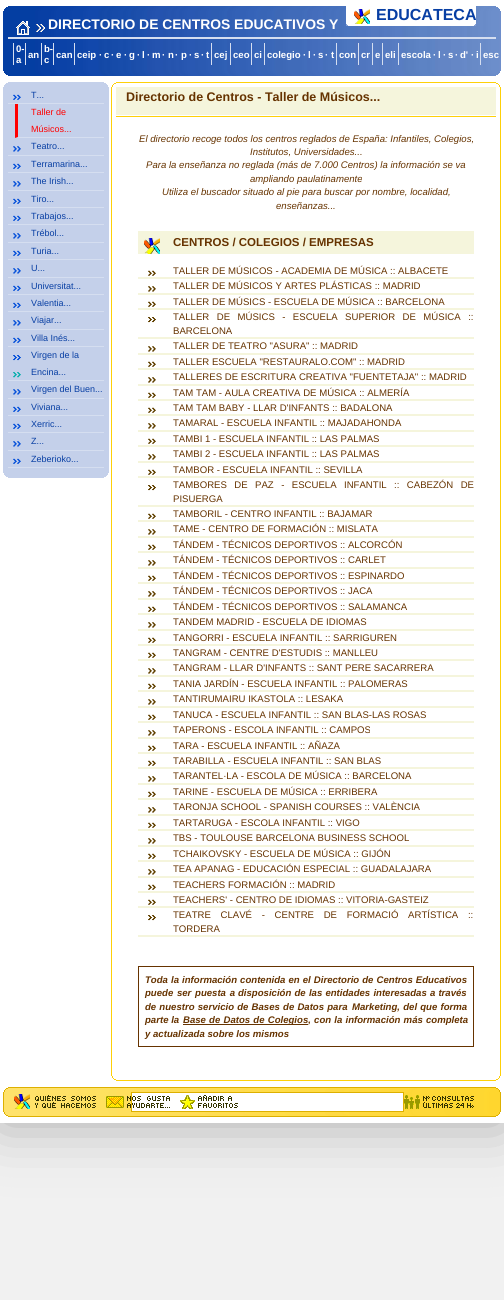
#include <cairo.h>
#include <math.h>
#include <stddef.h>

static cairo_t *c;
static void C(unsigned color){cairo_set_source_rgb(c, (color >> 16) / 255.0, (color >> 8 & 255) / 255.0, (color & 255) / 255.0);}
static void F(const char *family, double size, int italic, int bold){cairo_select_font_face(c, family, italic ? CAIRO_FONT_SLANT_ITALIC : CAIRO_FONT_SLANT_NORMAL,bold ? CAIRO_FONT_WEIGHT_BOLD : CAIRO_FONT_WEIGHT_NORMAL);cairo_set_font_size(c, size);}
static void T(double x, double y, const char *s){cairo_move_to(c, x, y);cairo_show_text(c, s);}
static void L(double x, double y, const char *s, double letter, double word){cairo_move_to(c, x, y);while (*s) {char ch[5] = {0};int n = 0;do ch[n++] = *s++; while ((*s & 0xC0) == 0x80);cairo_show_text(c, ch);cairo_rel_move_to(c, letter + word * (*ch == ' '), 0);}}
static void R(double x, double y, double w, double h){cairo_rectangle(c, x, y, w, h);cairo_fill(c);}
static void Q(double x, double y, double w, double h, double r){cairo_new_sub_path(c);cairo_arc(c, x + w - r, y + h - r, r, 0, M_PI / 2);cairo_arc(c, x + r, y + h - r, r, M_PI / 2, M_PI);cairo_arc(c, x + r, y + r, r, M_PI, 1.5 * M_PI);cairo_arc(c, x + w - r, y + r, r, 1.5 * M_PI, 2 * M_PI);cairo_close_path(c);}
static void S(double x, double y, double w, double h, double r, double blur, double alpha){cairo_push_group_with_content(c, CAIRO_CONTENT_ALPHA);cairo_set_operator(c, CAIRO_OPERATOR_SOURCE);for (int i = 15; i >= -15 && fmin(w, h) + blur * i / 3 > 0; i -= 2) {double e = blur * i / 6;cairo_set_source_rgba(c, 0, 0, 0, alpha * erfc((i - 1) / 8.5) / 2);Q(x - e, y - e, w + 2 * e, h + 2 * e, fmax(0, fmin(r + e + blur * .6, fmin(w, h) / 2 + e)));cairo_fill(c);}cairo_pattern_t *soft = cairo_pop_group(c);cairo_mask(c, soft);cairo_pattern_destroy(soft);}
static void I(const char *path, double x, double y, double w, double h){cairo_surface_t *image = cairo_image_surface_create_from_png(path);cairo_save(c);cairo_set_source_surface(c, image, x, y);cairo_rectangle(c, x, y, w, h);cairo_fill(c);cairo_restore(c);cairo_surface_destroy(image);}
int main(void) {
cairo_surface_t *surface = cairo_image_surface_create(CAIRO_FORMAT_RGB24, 504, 1300);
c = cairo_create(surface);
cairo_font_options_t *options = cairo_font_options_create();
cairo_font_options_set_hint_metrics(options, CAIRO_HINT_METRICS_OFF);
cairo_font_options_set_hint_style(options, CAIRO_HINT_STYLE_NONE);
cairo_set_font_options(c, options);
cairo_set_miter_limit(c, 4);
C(0xf1f1f1);
cairo_paint(c);
C(0xaaaaaa);
S(0,0,504,1123,0,30,1);
C(0xffffff);
R(0,0,504,1123);
I("1.png",8,6,488,1);
I("2.png",6,7,492,1);
I("3.png",5,8,494,1);
I("4.png",4,9,496,2);
I("7.png",3,11,498,60);
C(0x86a0d3);
R(346,24,130,2);
C(0xffffff);
R(346,6,130,18);
I("5.png",354,9,16,15);
F("Liberation Sans",16,0,1);
C(0x073ea3);
T(376,20,"EDUCATECA");
C(0xffffff);
R(347,24,128,1);
R(348,25,126,1);
I("6.png",16,21,29,14);
C(0xd5def0);
R(8,37,488,2);
F("Liberation Sans",13.9,0,1);
C(0xffffff);
T(48,29,"DIRECTORIO DE CENTROS EDUCATIVOS Y");
C(0xd5def0);
R(13,43,1,22);
F("Liberation Sans",9.6,0,1);
C(0xffffff);
T(16,52,"0-");
T(16,63,"a");
C(0xd5def0);
R(25,43,1,22);
C(0xffffff);
T(28,58,"an");
C(0xd5def0);
R(41,43,1,22);
C(0xffffff);
T(44,52,"b-");
T(44,63,"c");
C(0xd5def0);
R(53,43,1,22);
C(0xffffff);
T(56,58,"can");
C(0xd5def0);
R(74,43,1,22);
C(0xffffff);
T(77,58,"ceip");
T(99,58,"·");
T(104,58,"c");
T(111,58,"·");
T(116,58,"e");
T(124,58,"·");
T(129,58,"g");
T(137,58,"·");
T(142,58,"l");
T(147,58,"·");
T(152,58,"m");
T(162,58,"·");
T(168,58,"n");
T(175,58,"·");
T(181,58,"p");
T(189,58,"·");
T(194,58,"s");
T(201,58,"·");
T(206,58,"t");
C(0xd5def0);
R(211,43,1,22);
C(0xffffff);
T(214,58,"cej");
C(0xd5def0);
R(230,43,1,22);
C(0xffffff);
T(233,58,"ceo");
C(0xd5def0);
R(251,43,1,22);
C(0xffffff);
T(254,58,"ci");
C(0xd5def0);
R(264,43,1,22);
C(0xffffff);
T(267,58,"colegio");
T(303,58,"·");
T(308,58,"l");
T(313,58,"·");
T(318,58,"s");
T(325,58,"·");
T(331,58,"t");
C(0xd5def0);
R(336,43,1,22);
C(0xffffff);
T(339,58,"con");
C(0xd5def0);
R(358,43,1,22);
C(0xffffff);
T(361,58,"cr");
C(0xd5def0);
R(372,43,1,22);
C(0xffffff);
T(375,58,"e");
C(0xd5def0);
R(382,43,1,22);
C(0xffffff);
T(385,58,"eli");
C(0xd5def0);
R(398,43,1,22);
C(0xffffff);
T(401,58,"escola");
T(433,58,"·");
T(438,58,"l");
T(443,58,"·");
T(448,58,"s");
T(455,58,"·");
T(460,58,"d'");
T(471,58,"·");
T(476,58,"i");
C(0xd5def0);
R(480,43,1,22);
C(0xffffff);
T(483,58,"esc");
I("4.png",4,71,496,2);
I("3.png",5,73,494,1);
I("2.png",6,74,492,1);
I("1.png",8,75,488,1);
C(0xc4d0ea);
R(3,87,106,386);
R(8,82,96,1);
R(6,83,100,1);
R(5,84,102,1);
R(4,85,104,2);
I("8.png",13,94,8,6);
C(0xd5def0);
R(8,103,96,1);
F("Liberation Sans",9,0,0);
C(0x073ea3);
T(31,98,"T...");
C(0xd5def0);
cairo_new_path(c);
cairo_move_to(c,104,138);
cairo_line_to(c,15,138);
cairo_line_to(c,18,137);
cairo_line_to(c,104,137);
cairo_close_path(c);
cairo_fill(c);
C(0xff0000);
cairo_new_path(c);
cairo_move_to(c,15,138);
cairo_line_to(c,15,104);
cairo_line_to(c,18,104);
cairo_line_to(c,18,137);
cairo_close_path(c);
cairo_fill(c);
T(31,115,"Taller de");
T(31,132,"Músicos...");
I("9.png",13,146,8,6);
C(0xd5def0);
R(8,155,96,1);
C(0x073ea3);
T(31,149,"Teatro...");
I("8.png",13,163,8,6);
C(0xd5def0);
R(8,172,96,1);
C(0x073ea3);
T(31,167,"Terramarina...");
I("9.png",13,181,8,6);
C(0xd5def0);
R(8,190,96,1);
C(0x073ea3);
T(31,184,"The Irish...");
I("8.png",13,198,8,6);
C(0xd5def0);
R(8,207,96,1);
C(0x073ea3);
T(31,202,"Tiro...");
I("8.png",13,215,8,6);
C(0xd5def0);
R(8,224,96,1);
C(0x073ea3);
T(31,219,"Trabajos...");
I("9.png",13,233,8,6);
C(0xd5def0);
R(8,242,96,1);
C(0x073ea3);
T(31,236,"Trébol...");
I("8.png",13,250,8,6);
C(0xd5def0);
R(8,259,96,1);
C(0x073ea3);
T(31,254,"Turia...");
I("9.png",13,268,8,6);
C(0xd5def0);
R(8,277,96,1);
C(0x073ea3);
T(31,271,"U...");
I("8.png",13,285,8,6);
C(0xd5def0);
R(8,294,96,1);
C(0x073ea3);
T(31,289,"Universitat...");
I("8.png",13,302,8,6);
C(0xd5def0);
R(8,311,96,1);
C(0x073ea3);
T(31,306,"Valentia...");
I("9.png",13,320,8,6);
C(0xd5def0);
R(8,329,96,1);
C(0x073ea3);
T(31,323,"Viajar...");
I("8.png",13,337,8,6);
C(0xd5def0);
R(8,346,96,1);
C(0x073ea3);
T(31,341,"Villa Inés...");
I("10.png",13,355,8,23);
C(0xd5def0);
R(8,380,96,1);
C(0x073ea3);
T(31,358,"Virgen de la");
T(31,375,"Encina...");
I("9.png",13,389,8,6);
C(0xd5def0);
R(8,398,96,1);
C(0x073ea3);
T(31,392,"Virgen del Buen...");
I("8.png",13,406,8,6);
C(0xd5def0);
R(8,415,96,1);
C(0x073ea3);
T(31,410,"Viviana...");
I("8.png",13,423,8,6);
C(0xd5def0);
R(8,432,96,1);
C(0x073ea3);
T(31,427,"Xerric...");
I("9.png",13,441,8,6);
C(0xd5def0);
R(8,450,96,1);
C(0x073ea3);
T(31,444,"Z...");
I("8.png",13,458,8,6);
C(0xd5def0);
R(8,467,96,1);
C(0x073ea3);
T(31,462,"Zeberioko...");
C(0xc4d0ea);
R(4,473,104,2);
R(5,475,102,1);
R(6,476,100,1);
R(8,477,96,1);
C(0xfed008);
R(116,82,380,1);
R(496,83,2,1);
R(114,83,2,1);
R(498,84,1,1);
R(113,84,1,1);
R(499,85,1,2);
R(112,85,1,2);
R(500,87,1,989);
R(111,87,1,989);
C(0xf5f5dc);
R(116,87,380,28);
F("Liberation Sans",12.5,0,1);
C(0x663300);
T(126,101,"Directorio de Centros - Taller de Músicos...");
C(0xfed008);
R(116,116,380,1);
F("Liberation Sans",9.6,1,0);
C(0x663300);
T(139,142,"El directorio recoge todos los centros reglados de España: Infantiles, Colegios,");
T(250,155,"Institutos, Universidades...");
T(146,168,"Para la enseñanza no reglada (más de 7.000 Centros) la información se va");
T(250,182,"ampliando paulatinamente");
T(162,195,"Utiliza el buscador situado al pie para buscar por nombre, localidad,");
T(276,209,"enseñanzas...");
C(0xf5f5dc);
R(138,231,336,23);
I("11.png",144,238,16,16);
F("Liberation Sans",11.5,0,1);
C(0x663300);
T(173,246,"CENTROS / COLEGIOS / EMPRESAS");
I("12.png",148,270,8,6);
C(0xf5f5dc);
R(138,277,336,2);
F("Liberation Sans",9.6,0,0);
C(0x663300);
T(173,274,"TALLER DE MÚSICOS - ACADEMIA DE MÚSICA :: ALBACETE");
I("13.png",148,286,8,6);
C(0xf5f5dc);
R(138,293,336,2);
C(0x663300);
T(173,289,"TALLER DE MÚSICOS Y ARTES PLÁSTICAS :: MADRID");
I("12.png",148,301,8,6);
C(0xf5f5dc);
R(138,308,336,2);
C(0x663300);
T(173,305,"TALLER DE MÚSICS - ESCUELA DE MÚSICA :: BARCELONA");
I("14.png",148,317,8,6);
C(0xf5f5dc);
R(138,337,336,2);
C(0x663300);
L(173,320,"TALLER DE MÚSICS - ESCUELA SUPERIOR DE MÚSICA ::",0,4.75);
T(173,334,"BARCELONA");
I("13.png",148,346,8,6);
C(0xf5f5dc);
R(138,353,336,2);
C(0x663300);
T(173,349,"TALLER DE TEATRO \"ASURA\" :: MADRID");
I("12.png",148,361,8,6);
C(0xf5f5dc);
R(138,368,336,2);
C(0x663300);
T(173,365,"TALLER ESCUELA \"RESTAURALO.COM\" :: MADRID");
I("13.png",148,377,8,6);
C(0xf5f5dc);
R(138,384,336,2);
C(0x663300);
T(173,380,"TALLERES DE ESCRITURA CREATIVA \"FUENTETAJA\" :: MADRID");
I("12.png",148,392,8,6);
C(0xf5f5dc);
R(138,399,336,2);
C(0x663300);
T(173,396,"TAM TAM - AULA CREATIVA DE MÚSICA :: ALMERÍA");
I("12.png",148,407,8,6);
C(0xf5f5dc);
R(138,414,336,2);
C(0x663300);
T(173,411,"TAM TAM BABY - LLAR D'INFANTS :: BADALONA");
I("13.png",148,423,8,6);
C(0xf5f5dc);
R(138,430,336,2);
C(0x663300);
T(173,426,"TAMARAL - ESCUELA INFANTIL :: MAJADAHONDA");
I("12.png",148,438,8,6);
C(0xf5f5dc);
R(138,445,336,2);
C(0x663300);
T(173,442,"TAMBI 1 - ESCUELA INFANTIL :: LAS PALMAS");
I("13.png",148,454,8,6);
C(0xf5f5dc);
R(138,461,336,2);
C(0x663300);
T(173,457,"TAMBI 2 - ESCUELA INFANTIL :: LAS PALMAS");
I("12.png",148,469,8,6);
C(0xf5f5dc);
R(138,476,336,2);
C(0x663300);
T(173,473,"TAMBOR - ESCUELA INFANTIL :: SEVILLA");
I("14.png",148,485,8,6);
C(0xf5f5dc);
R(138,505,336,2);
C(0x663300);
L(173,488,"TAMBORES DE PAZ - ESCUELA INFANTIL :: CABEZÓN DE",0,4.75);
T(173,502,"PISUERGA");
I("12.png",148,513,8,6);
C(0xf5f5dc);
R(138,520,336,2);
C(0x663300);
T(173,517,"TAMBORIL - CENTRO INFANTIL :: BAJAMAR");
I("13.png",148,529,8,6);
C(0xf5f5dc);
R(138,536,336,2);
C(0x663300);
T(173,532,"TAME - CENTRO DE FORMACIÓN :: MISLATA");
I("12.png",148,544,8,6);
C(0xf5f5dc);
R(138,551,336,2);
C(0x663300);
T(173,548,"TÁNDEM - TÉCNICOS DEPORTIVOS :: ALCORCÓN");
I("13.png",148,560,8,6);
C(0xf5f5dc);
R(138,567,336,2);
C(0x663300);
T(173,563,"TÁNDEM - TÉCNICOS DEPORTIVOS :: CARLET");
I("12.png",148,575,8,6);
C(0xf5f5dc);
R(138,582,336,2);
C(0x663300);
T(173,579,"TÁNDEM - TÉCNICOS DEPORTIVOS :: ESPINARDO");
I("13.png",148,591,8,6);
C(0xf5f5dc);
R(138,598,336,2);
C(0x663300);
T(173,594,"TÁNDEM - TÉCNICOS DEPORTIVOS :: JACA");
I("12.png",148,606,8,6);
C(0xf5f5dc);
R(138,613,336,2);
C(0x663300);
T(173,610,"TÁNDEM - TÉCNICOS DEPORTIVOS :: SALAMANCA");
I("13.png",148,622,8,6);
C(0xf5f5dc);
R(138,629,336,2);
C(0x663300);
T(173,625,"TANDEM MADRID - ESCUELA DE IDIOMAS");
I("12.png",148,637,8,6);
C(0xf5f5dc);
R(138,644,336,2);
C(0x663300);
T(173,641,"TANGORRI - ESCUELA INFANTIL :: SARRIGUREN");
I("12.png",148,652,8,6);
C(0xf5f5dc);
R(138,659,336,2);
C(0x663300);
T(173,656,"TANGRAM - CENTRE D'ESTUDIS :: MANLLEU");
I("13.png",148,668,8,6);
C(0xf5f5dc);
R(138,675,336,2);
C(0x663300);
T(173,671,"TANGRAM - LLAR D'INFANTS :: SANT PERE SACARRERA");
I("12.png",148,683,8,6);
C(0xf5f5dc);
R(138,690,336,2);
C(0x663300);
T(173,687,"TANIA JARDÍN - ESCUELA INFANTIL :: PALOMERAS");
I("13.png",148,699,8,6);
C(0xf5f5dc);
R(138,706,336,2);
C(0x663300);
T(173,702,"TANTIRUMAIRU IKASTOLA :: LESAKA");
I("12.png",148,714,8,6);
C(0xf5f5dc);
R(138,721,336,2);
C(0x663300);
T(173,718,"TANUCA - ESCUELA INFANTIL :: SAN BLAS-LAS ROSAS");
I("13.png",148,730,8,6);
C(0xf5f5dc);
R(138,737,336,2);
C(0x663300);
T(173,733,"TAPERONS - ESCOLA INFANTIL :: CAMPOS");
I("12.png",148,745,8,6);
C(0xf5f5dc);
R(138,752,336,2);
C(0x663300);
T(173,749,"TARA - ESCUELA INFANTIL :: AÑAZA");
I("12.png",148,760,8,6);
C(0xf5f5dc);
R(138,767,336,2);
C(0x663300);
T(173,764,"TARABILLA - ESCUELA INFANTIL :: SAN BLAS");
I("13.png",148,776,8,6);
C(0xf5f5dc);
R(138,783,336,2);
C(0x663300);
T(173,779,"TARANTEL·LA - ESCOLA DE MÚSICA :: BARCELONA");
I("12.png",148,791,8,6);
C(0xf5f5dc);
R(138,798,336,2);
C(0x663300);
T(173,795,"TARINE - ESCUELA DE MÚSICA :: ERRIBERA");
I("13.png",148,807,8,6);
C(0xf5f5dc);
R(138,814,336,2);
C(0x663300);
T(173,810,"TARONJA SCHOOL - SPANISH COURSES :: VALÈNCIA");
I("12.png",148,822,8,6);
C(0xf5f5dc);
R(138,829,336,2);
C(0x663300);
T(173,826,"TARTARUGA - ESCOLA INFANTIL :: VIGO");
I("13.png",148,838,8,6);
C(0xf5f5dc);
R(138,845,336,2);
C(0x663300);
T(173,841,"TBS - TOULOUSE BARCELONA BUSINESS SCHOOL");
I("12.png",148,853,8,6);
C(0xf5f5dc);
R(138,860,336,2);
C(0x663300);
T(173,857,"TCHAIKOVSKY - ESCUELA DE MÚSICA :: GIJÓN");
I("13.png",148,869,8,6);
C(0xf5f5dc);
R(138,876,336,2);
C(0x663300);
T(173,872,"TEA APANAG - EDUCACIÓN ESPECIAL :: GUADALAJARA");
I("12.png",148,884,8,6);
C(0xf5f5dc);
R(138,891,336,2);
C(0x663300);
T(173,888,"TEACHERS FORMACIÓN :: MADRID");
I("12.png",148,899,8,6);
C(0xf5f5dc);
R(138,906,336,2);
C(0x663300);
T(173,903,"TEACHERS' - CENTRO DE IDIOMAS :: VITORIA-GASTEIZ");
I("14.png",148,915,8,6);
C(0xf5f5dc);
R(138,935,336,2);
C(0x663300);
L(173,918,"TEATRE CLAVÉ - CENTRE DE FORMACIÓ ARTÍSTICA ::",0,7);
T(173,932,"TORDERA");
cairo_rectangle(c,138.5,966.5,335,80);
cairo_set_line_width(c,1);
cairo_stroke(c);
F("Liberation Sans",9.6,1,1);
L(145,983,"Toda la información contenida en el Directorio de Centros Educativos",0,.4);
L(145,996,"puede ser puesta a",0,1);
L(238,996,"disposición de las entidades interesadas a través",0,.5);
L(145,1010,"de nuestro servicio de Bases de Datos para",0,.5);
L(352,1010,"Marketing, del que forma",0,.5);
T(145,1023,"parte la");
R(183,1024,125,1);
L(183,1023,"Base de Datos de Colegios, con la información más completa",0,.5);
T(145,1037,"y actualizada sobre los mismos");
C(0xfed008);
R(499,1076,1,2);
R(112,1076,1,2);
R(498,1078,1,1);
R(113,1078,1,1);
R(496,1079,2,1);
R(114,1079,2,1);
R(116,1080,380,1);
C(0xddb000);
R(8,1087,488,1);
I("15.png",8,1088,488,1);
R(496,1088,2,1);
R(6,1088,2,1);
I("16.png",6,1089,492,1);
R(498,1089,1,1);
R(5,1089,1,1);
I("17.png",5,1090,494,2);
R(499,1090,1,2);
R(4,1090,1,2);
I("18.png",4,1092,496,20);
R(500,1092,1,20);
R(3,1092,1,20);
I("19.png",14,1094,82,15);
C(0xffffff);
cairo_rectangle(c,131.5,1092.5,272,19);
cairo_fill_preserve(c);
C(0xddb000);
cairo_stroke(c);
I("20.png",106,1096,64,12);
I("21.png",180,1095,58,14);
I("22.png",404,1095,70,14);
I("17.png",5,1112,494,2);
R(499,1112,1,2);
R(4,1112,1,2);
I("16.png",6,1114,492,1);
R(498,1114,1,1);
R(5,1114,1,1);
I("15.png",8,1115,488,1);
R(496,1115,2,1);
R(6,1115,2,1);
R(8,1116,488,1);
cairo_surface_write_to_png(surface, "o.png");
cairo_font_options_destroy(options);
cairo_destroy(c);
cairo_surface_destroy(surface);
return 0;
}
